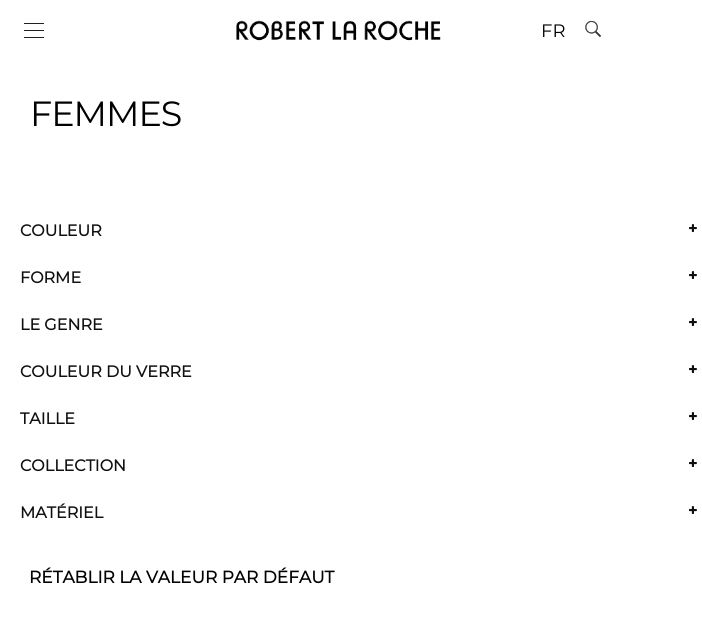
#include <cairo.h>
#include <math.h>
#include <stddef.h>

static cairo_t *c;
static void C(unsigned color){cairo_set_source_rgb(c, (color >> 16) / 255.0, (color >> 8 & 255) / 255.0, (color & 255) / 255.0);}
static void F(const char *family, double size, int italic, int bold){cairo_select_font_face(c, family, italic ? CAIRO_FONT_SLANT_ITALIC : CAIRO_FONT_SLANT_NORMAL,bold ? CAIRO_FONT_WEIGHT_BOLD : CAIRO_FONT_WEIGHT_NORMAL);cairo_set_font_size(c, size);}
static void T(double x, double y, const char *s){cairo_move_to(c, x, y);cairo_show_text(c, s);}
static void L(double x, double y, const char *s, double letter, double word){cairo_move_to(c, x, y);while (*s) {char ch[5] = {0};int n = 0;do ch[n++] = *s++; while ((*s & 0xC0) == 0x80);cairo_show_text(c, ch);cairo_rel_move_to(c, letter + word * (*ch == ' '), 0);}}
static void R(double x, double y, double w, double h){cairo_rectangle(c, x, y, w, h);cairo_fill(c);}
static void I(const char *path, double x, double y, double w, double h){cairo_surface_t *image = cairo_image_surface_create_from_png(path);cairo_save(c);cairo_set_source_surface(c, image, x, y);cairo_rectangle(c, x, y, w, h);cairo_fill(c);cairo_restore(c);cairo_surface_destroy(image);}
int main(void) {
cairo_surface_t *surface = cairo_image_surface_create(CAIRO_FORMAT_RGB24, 702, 627);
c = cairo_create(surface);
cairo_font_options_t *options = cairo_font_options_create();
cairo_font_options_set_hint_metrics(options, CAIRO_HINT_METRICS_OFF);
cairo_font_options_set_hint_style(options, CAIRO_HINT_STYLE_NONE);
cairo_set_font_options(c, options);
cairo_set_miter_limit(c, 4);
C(0xffffff);
cairo_paint(c);
C(0x212121);
R(24,23,20,1);
R(24,30,20,1);
R(24,37,20,1);
I("1.png",236,20,205,21);
F("Montserrat",18,0,0);
C(0x000000);
T(541,37,"FR");
I("2.png",585,20,17,18);
F("Montserrat",35,0,0);
L(30,126,"FEMMES",-1,0);
F("Montserrat",16,0,1);
C(0x0f0f0f);
T(20,236,"COULEUR");
I("3.png",689,224,8,8);
T(20,283,"FORME");
I("3.png",689,271,8,8);
T(20,330,"LE GENRE");
I("3.png",689,318,8,8);
T(20,377,"COULEUR DU VERRE");
I("3.png",689,365,8,8);
T(20,424,"TAILLE");
I("3.png",689,412,8,8);
T(20,471,"COLLECTION");
I("3.png",689,459,8,8);
T(20,518,"MATÉRIEL");
I("3.png",689,506,8,8);
F("Montserrat",17,0,1);
C(0x000000);
T(29,583,"RÉTABLIR LA VALEUR PAR DÉFAUT");
cairo_surface_write_to_png(surface, "o.png");
cairo_font_options_destroy(options);
cairo_destroy(c);
cairo_surface_destroy(surface);
return 0;
}
